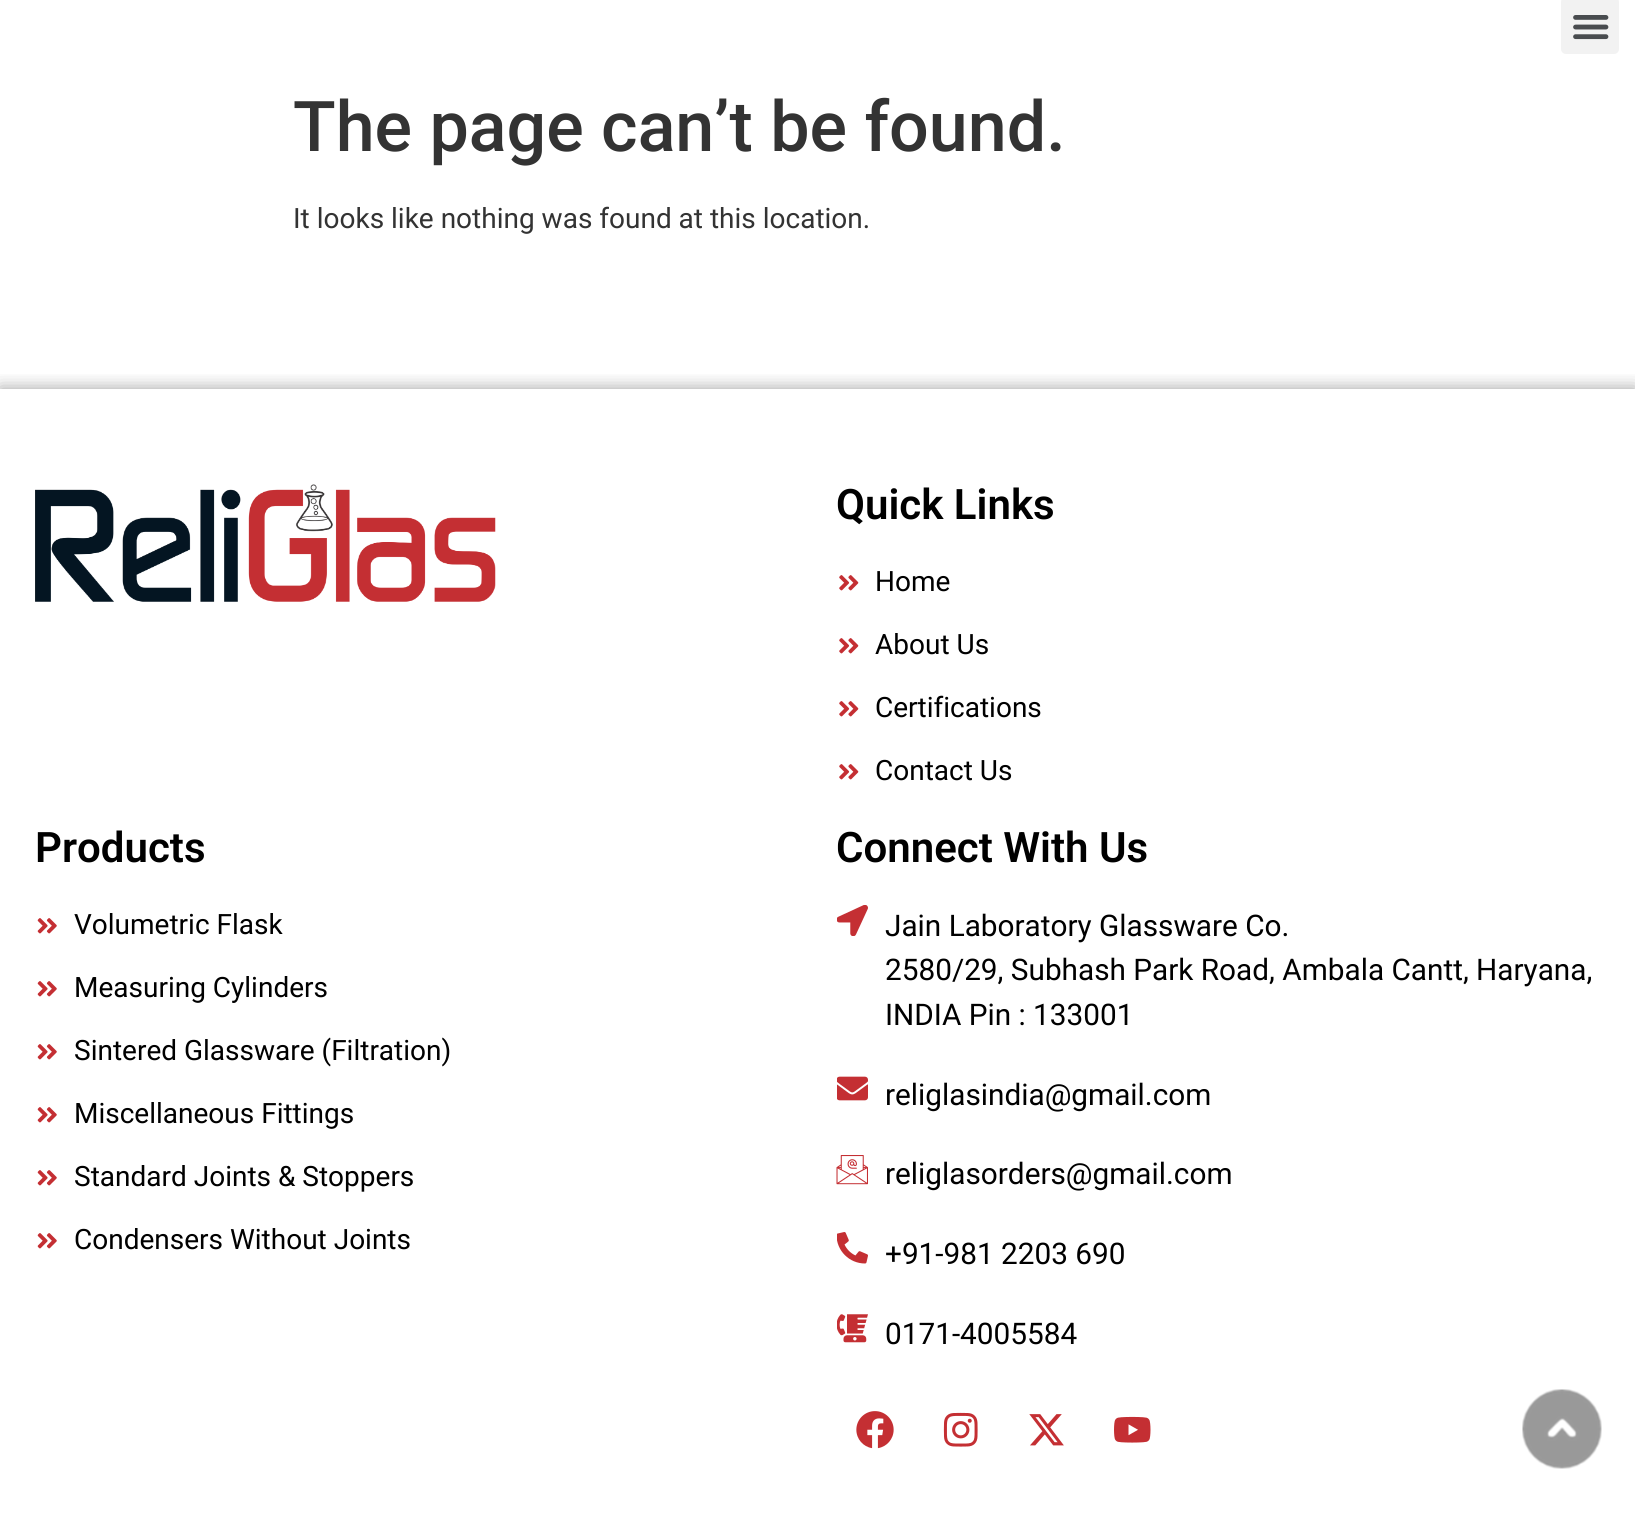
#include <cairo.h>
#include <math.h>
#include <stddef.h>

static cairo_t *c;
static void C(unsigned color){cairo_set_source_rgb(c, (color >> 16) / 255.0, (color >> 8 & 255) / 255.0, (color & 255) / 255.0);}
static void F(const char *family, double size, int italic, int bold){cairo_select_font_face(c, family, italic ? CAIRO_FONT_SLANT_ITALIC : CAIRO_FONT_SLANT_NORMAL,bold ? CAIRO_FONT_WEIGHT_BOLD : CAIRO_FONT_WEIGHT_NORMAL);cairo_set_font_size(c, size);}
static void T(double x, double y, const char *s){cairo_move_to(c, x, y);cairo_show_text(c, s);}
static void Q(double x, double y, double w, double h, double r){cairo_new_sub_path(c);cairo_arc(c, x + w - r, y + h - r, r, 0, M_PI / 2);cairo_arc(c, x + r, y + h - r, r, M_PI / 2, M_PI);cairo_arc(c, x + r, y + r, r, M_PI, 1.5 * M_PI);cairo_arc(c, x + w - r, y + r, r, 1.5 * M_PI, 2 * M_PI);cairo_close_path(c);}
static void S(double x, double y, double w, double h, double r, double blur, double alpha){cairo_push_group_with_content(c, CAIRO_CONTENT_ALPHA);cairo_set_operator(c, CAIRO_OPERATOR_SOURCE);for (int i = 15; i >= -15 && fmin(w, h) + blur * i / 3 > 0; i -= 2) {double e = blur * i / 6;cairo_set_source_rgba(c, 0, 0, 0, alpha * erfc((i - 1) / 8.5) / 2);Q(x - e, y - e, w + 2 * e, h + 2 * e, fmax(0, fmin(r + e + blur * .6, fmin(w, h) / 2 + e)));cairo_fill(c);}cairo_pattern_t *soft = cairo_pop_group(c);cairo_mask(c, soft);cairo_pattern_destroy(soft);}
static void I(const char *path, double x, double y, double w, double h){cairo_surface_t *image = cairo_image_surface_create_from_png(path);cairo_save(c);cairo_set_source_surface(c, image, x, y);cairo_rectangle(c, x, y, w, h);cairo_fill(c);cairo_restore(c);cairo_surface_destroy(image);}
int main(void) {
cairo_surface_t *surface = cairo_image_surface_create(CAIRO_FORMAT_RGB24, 1635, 1514);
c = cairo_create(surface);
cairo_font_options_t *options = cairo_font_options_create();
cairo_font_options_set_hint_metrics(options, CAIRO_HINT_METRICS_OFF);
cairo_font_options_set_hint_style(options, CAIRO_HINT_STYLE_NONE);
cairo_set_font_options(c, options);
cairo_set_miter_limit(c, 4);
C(0xffffff);
cairo_paint(c);
C(0xf2f2f2);
Q(1561,-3,58,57,5);
cairo_fill(c);
I("1.png",1573,15,36,25);
F("Roboto Medium",70,0,0);
C(0x333333);
T(293,151,"The page can’t be found.");
F("Roboto",28,0,0);
T(293,228,"It looks like nothing was found at this location.");
cairo_save(c);
cairo_rectangle(c,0,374,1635,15);
cairo_clip(c);
C(0x000000);
S(0,389,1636,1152,0,9,.39);
cairo_restore(c);
I("2.png",35,484,461,118);
F("Roboto SemiBold",42,0,0);
C(0x000000);
T(836,519,"Quick Links");
I("3.png",839,575,20,16);
F("Roboto",28,0,0);
T(875,591,"Home");
I("3.png",839,638,20,16);
T(875,654,"About Us");
I("3.png",839,701,20,16);
T(875,717,"Certifications");
I("3.png",839,764,20,16);
T(875,780,"Contact Us");
F("Roboto SemiBold",42,0,0);
T(35,862,"Products");
I("4.png",37,918,20,16);
F("Roboto",28,0,0);
T(74,934,"Volumetric Flask");
I("4.png",37,981,20,16);
T(74,997,"Measuring Cylinders");
I("4.png",37,1044,20,16);
T(74,1060,"Sintered Glassware (Filtration)");
I("4.png",37,1107,20,16);
T(74,1123,"Miscellaneous Fittings");
I("4.png",37,1170,20,16);
T(74,1186,"Standard Joints & Stoppers");
I("4.png",37,1233,20,16);
T(74,1249,"Condensers Without Joints");
F("Roboto SemiBold",42,0,0);
T(836,862,"Connect With Us");
I("5.png",837,905,31,31);
F("Roboto",29.75,0,0);
T(885,936,"Jain Laboratory Glassware Co.");
T(885,980,"2580/29, Subhash Park Road, Ambala Cantt, Haryana,");
T(885,1025,"INDIA Pin : 133001");
I("6.png",837,1076,31,25);
T(885,1105,"religlasindia@gmail.com");
I("7.png",836,1155,32,30);
T(885,1184,"religlasorders@gmail.com");
I("8.png",837,1232,31,32);
T(885,1264,"+91-981 2203 690");
I("9.png",837,1314,31,29);
T(885,1344,"0171-4005584");
I("10.png",856,1411,38,38);
I("11.png",943,1412,35,35);
I("12.png",1029,1414,35,32);
I("13.png",1114,1416,37,27);
I("14.png",1522,1389,80,80);
cairo_surface_write_to_png(surface, "o.png");
cairo_font_options_destroy(options);
cairo_destroy(c);
cairo_surface_destroy(surface);
return 0;
}
